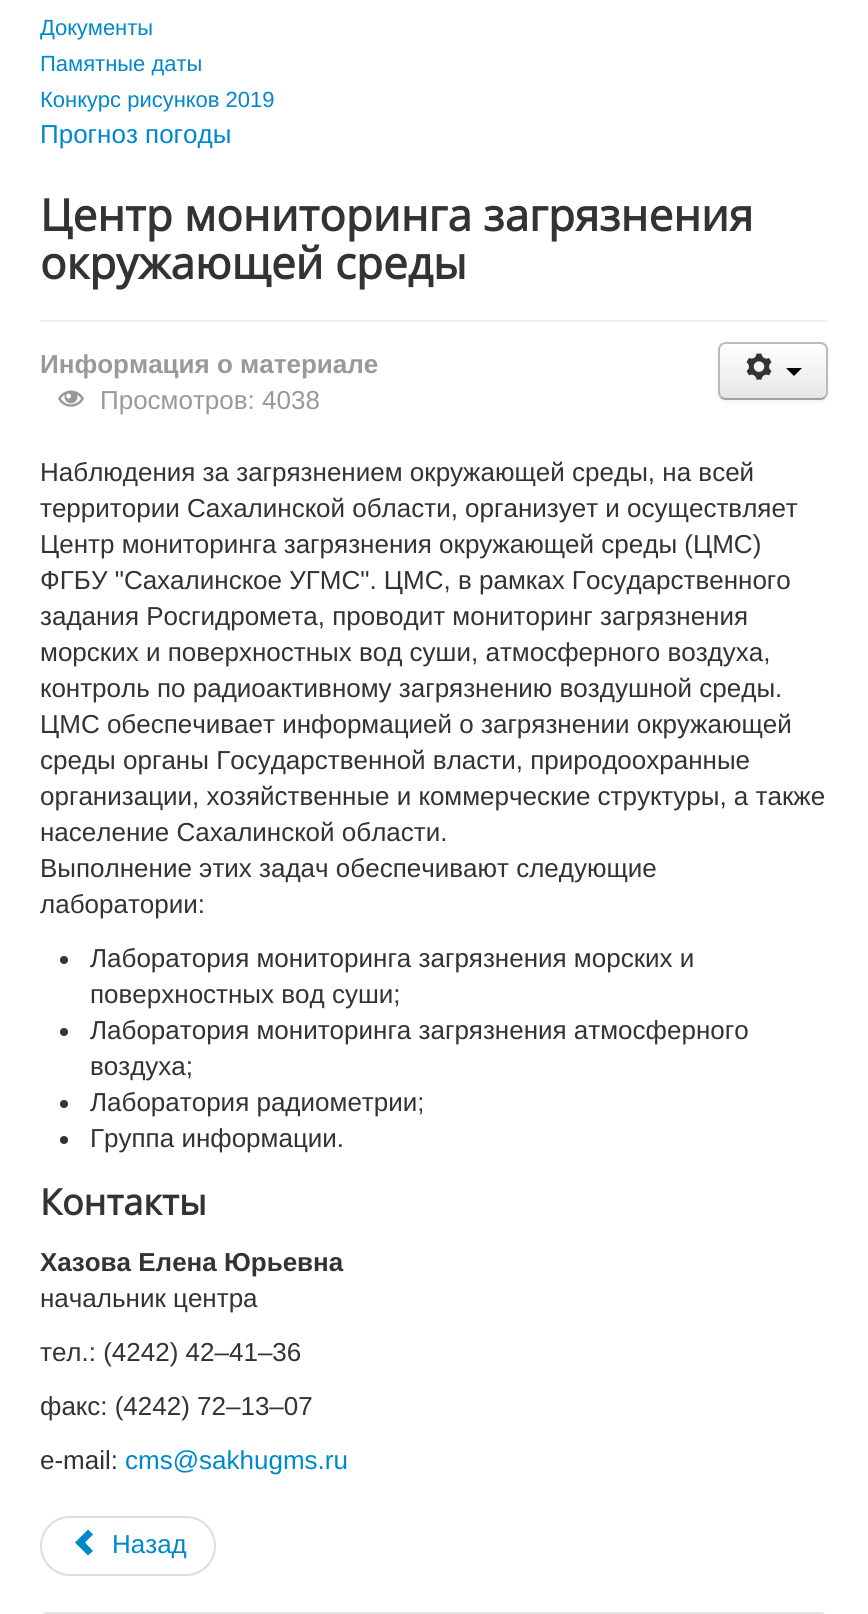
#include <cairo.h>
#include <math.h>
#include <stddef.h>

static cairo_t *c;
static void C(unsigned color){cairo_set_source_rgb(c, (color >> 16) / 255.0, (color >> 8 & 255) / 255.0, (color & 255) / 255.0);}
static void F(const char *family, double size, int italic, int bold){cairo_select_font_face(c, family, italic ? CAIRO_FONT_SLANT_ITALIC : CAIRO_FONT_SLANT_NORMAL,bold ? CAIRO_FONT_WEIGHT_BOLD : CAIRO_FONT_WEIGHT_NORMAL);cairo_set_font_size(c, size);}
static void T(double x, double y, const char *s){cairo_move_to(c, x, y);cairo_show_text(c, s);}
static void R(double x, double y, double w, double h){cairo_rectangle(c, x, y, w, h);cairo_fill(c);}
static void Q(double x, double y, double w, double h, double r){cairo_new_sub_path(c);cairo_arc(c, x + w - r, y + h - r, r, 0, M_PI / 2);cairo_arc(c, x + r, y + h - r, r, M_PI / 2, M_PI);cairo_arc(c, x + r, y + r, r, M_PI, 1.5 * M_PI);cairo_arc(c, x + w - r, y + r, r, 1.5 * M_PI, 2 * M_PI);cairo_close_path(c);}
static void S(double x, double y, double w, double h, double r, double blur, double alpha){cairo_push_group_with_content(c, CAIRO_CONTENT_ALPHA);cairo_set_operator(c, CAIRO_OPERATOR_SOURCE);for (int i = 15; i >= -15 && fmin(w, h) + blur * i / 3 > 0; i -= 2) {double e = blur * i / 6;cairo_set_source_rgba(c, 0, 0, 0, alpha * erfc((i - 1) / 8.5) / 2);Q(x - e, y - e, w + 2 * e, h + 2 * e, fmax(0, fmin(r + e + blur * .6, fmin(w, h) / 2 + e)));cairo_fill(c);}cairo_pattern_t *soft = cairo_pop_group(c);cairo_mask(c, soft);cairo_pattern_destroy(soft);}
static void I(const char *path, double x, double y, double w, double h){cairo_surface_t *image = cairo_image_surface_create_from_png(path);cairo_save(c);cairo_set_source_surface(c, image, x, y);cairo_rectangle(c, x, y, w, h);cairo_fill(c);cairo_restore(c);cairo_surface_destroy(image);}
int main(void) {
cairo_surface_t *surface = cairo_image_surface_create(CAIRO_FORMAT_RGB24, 868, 1614);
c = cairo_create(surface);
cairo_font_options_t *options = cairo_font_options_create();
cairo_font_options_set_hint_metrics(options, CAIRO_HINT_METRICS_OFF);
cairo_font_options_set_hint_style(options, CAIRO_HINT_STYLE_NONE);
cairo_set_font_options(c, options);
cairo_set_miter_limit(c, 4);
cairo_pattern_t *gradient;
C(0xffffff);
cairo_paint(c);
F("Liberation Sans",22,0,0);
C(0x0088cc);
T(40,35,"Документы");
T(40,71,"Памятные даты");
T(40,107,"Конкурс рисунков 2019");
F("Liberation Sans",26,0,0);
T(40,143,"Прогноз погоды");
C(0xeeeeee);
R(40,320,788,2);
F("Open Sans",44,0,1);
C(0x333333);
T(40,231,"Центр мониторинга загрязнения");
T(40,279,"окружающей среды");
F("Liberation Sans",26,0,1);
C(0x999999);
T(40,373,"Информация о материале");
I("1.png",58,390,26,17);
F("Liberation Sans",26,0,0);
T(100,409,"Просмотров: 4038");
C(0x000000);
S(718,344,110,58,8,2,.05);
cairo_save(c);
Q(718,342,110,58,8);
cairo_clip(c);
gradient = cairo_pattern_create_linear(773,344,773,398);
cairo_pattern_add_color_stop_rgba(gradient,0,1,1,1,1);
cairo_pattern_add_color_stop_rgba(gradient,1,0.902,0.902,0.902,1);
cairo_set_source(c,gradient);
cairo_pattern_destroy(gradient);
R(718,344,110,54);
cairo_restore(c);
cairo_new_path(c);
cairo_move_to(c,825,397);
cairo_curve_to(c,823.5,398.5,822,399,820,399);
cairo_line_to(c,726,399);
cairo_curve_to(c,724,399,722.5,398.5,721,397);
C(0xa2a2a2);
cairo_stroke(c);
cairo_new_path(c);
cairo_move_to(c,721,397);
cairo_curve_to(c,719.5,395.5,719,394,719,392);
cairo_line_to(c,719,350);
cairo_curve_to(c,719,348,719.5,346.5,721,345);
cairo_curve_to(c,722.5,343.5,724,343,726,343);
cairo_line_to(c,820,343);
cairo_curve_to(c,822,343,823.5,343.5,825,345);
cairo_curve_to(c,826.5,346.5,827,348,827,350);
cairo_line_to(c,827,392);
cairo_curve_to(c,827,394,826.5,395.5,825,397);
C(0xbbbbbb);
cairo_stroke(c);
I("2.png",746,353,26,27);
C(0x000000);
cairo_new_path(c);
cairo_move_to(c,786,368);
cairo_line_to(c,802,368);
cairo_line_to(c,794,376);
cairo_close_path(c);
cairo_fill(c);
C(0x333333);
T(40,481,"Наблюдения за загрязнением окружающей среды, на всей");
T(40,517,"территории Сахалинской области, организует и осуществляет");
T(40,553,"Центр мониторинга загрязнения окружающей среды (ЦМС)");
T(40,589,"ФГБУ \"Сахалинское УГМС\". ЦМС, в рамках Государственного");
T(40,625,"задания Росгидромета, проводит мониторинг загрязнения");
T(40,661,"морских и поверхностных вод суши, атмосферного воздуха,");
T(40,697,"контроль по радиоактивному загрязнению воздушной среды.");
T(40,733,"ЦМС обеспечивает информацией о загрязнении окружающей");
T(40,769,"среды органы Государственной власти, природоохранные");
T(40,805,"организации, хозяйственные и коммерческие структуры, а также");
T(40,841,"население Сахалинской области.");
T(40,877,"Выполнение этих задач обеспечивают следующие");
T(40,913,"лаборатории:");
cairo_new_path(c);
cairo_arc(c,64,960,4,0,2 * M_PI);
cairo_fill(c);
T(90,967,"Лаборатория мониторинга загрязнения морских и");
T(90,1003,"поверхностных вод суши;");
cairo_new_path(c);
cairo_arc(c,64,1032,4,0,2 * M_PI);
cairo_fill(c);
T(90,1039,"Лаборатория мониторинга загрязнения атмосферного");
T(90,1075,"воздуха;");
cairo_new_path(c);
cairo_arc(c,64,1104,4,0,2 * M_PI);
cairo_fill(c);
T(90,1111,"Лаборатория радиометрии;");
cairo_new_path(c);
cairo_arc(c,64,1140,4,0,2 * M_PI);
cairo_fill(c);
T(90,1147,"Группа информации.");
F("Open Sans",36,0,1);
T(40,1215,"Контакты");
F("Liberation Sans",26,0,1);
T(40,1271,"Хазова Елена Юрьевна");
F("Liberation Sans",26,0,0);
T(40,1307,"начальник центра");
T(40,1361,"тел.: (4242) 42–41–36");
T(40,1415,"факс: (4242) 72–13–07");
T(40,1469,"e-mail:");
C(0x0088cc);
T(125,1469,"cms@sakhugms.ru");
Q(41,1517,174,58,29);
C(0xdddddd);
cairo_stroke(c);
C(0x0088cc);
cairo_new_path(c);
cairo_move_to(c,88,1555.5);
cairo_line_to(c,75,1542.5);
cairo_line_to(c,88,1529.5);
cairo_line_to(c,93,1534.5);
cairo_line_to(c,85,1542.5);
cairo_line_to(c,93,1551);
cairo_close_path(c);
cairo_fill(c);
T(112,1553,"Назад");
Q(41,1613,786,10,7);
C(0xe3e3e3);
cairo_stroke(c);
cairo_surface_write_to_png(surface, "o.png");
cairo_font_options_destroy(options);
cairo_destroy(c);
cairo_surface_destroy(surface);
return 0;
}
